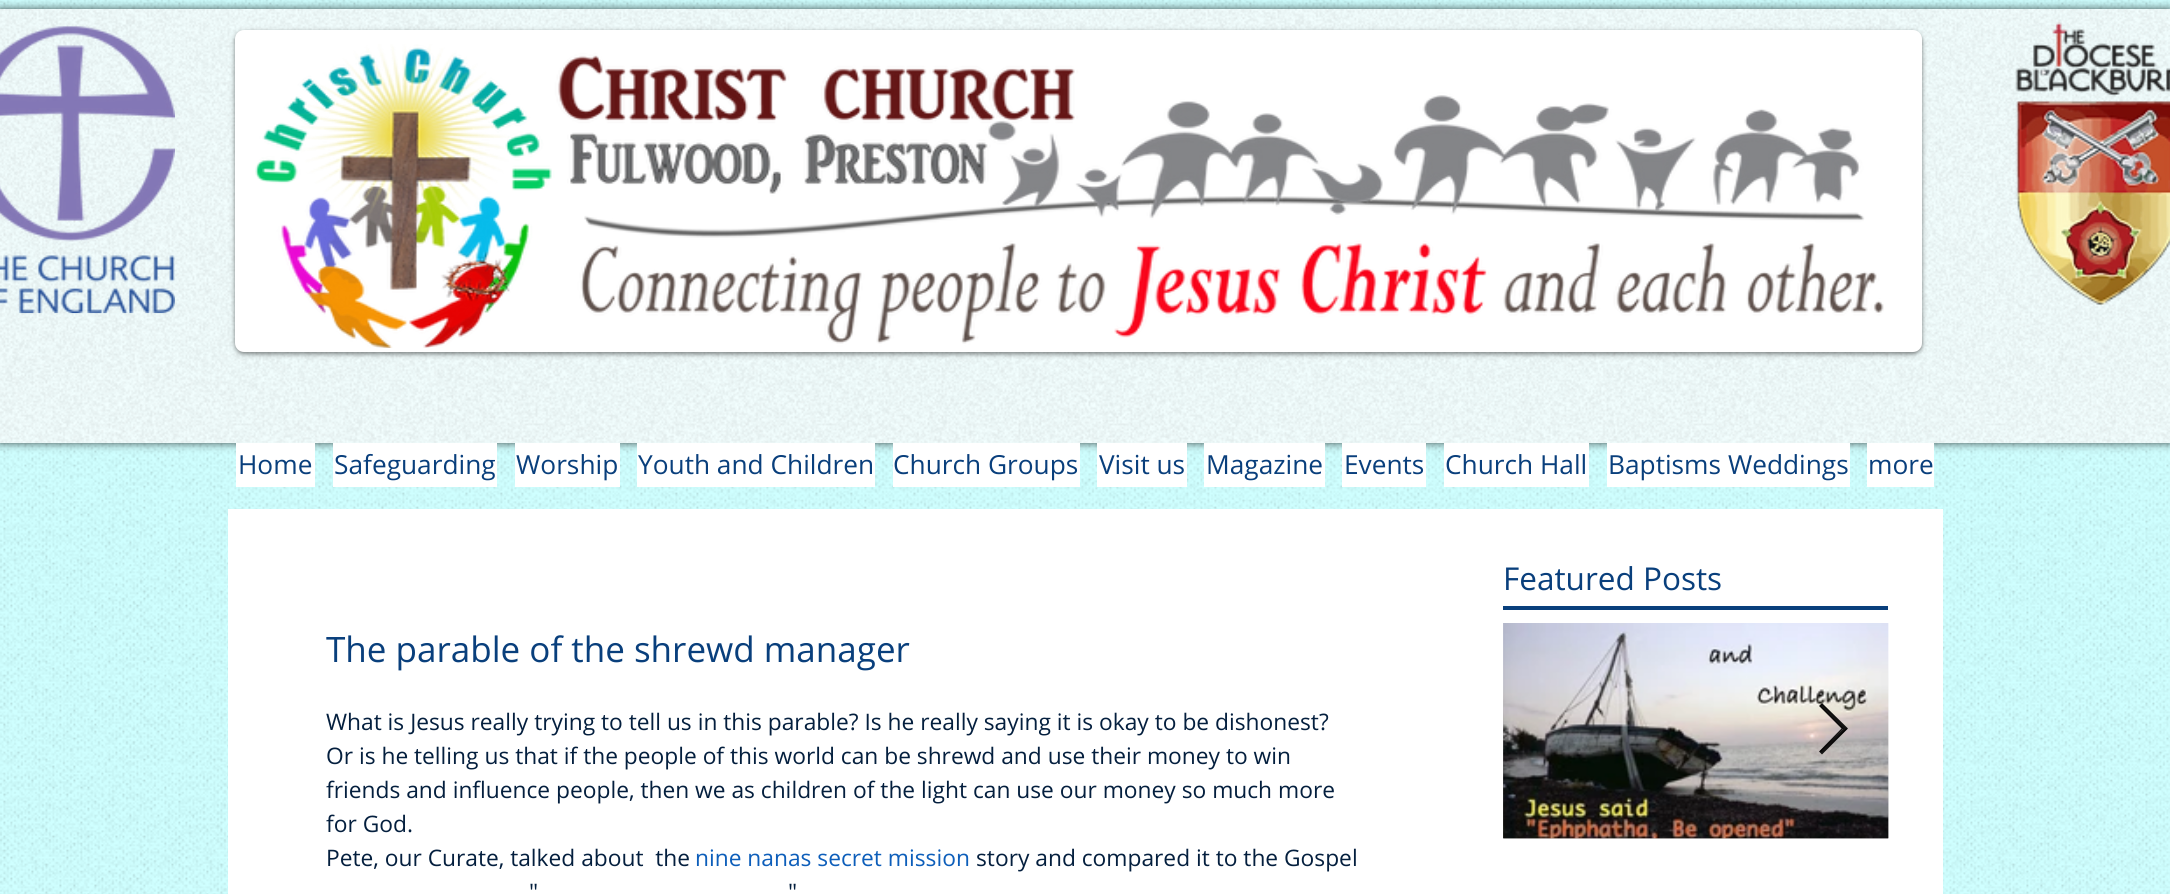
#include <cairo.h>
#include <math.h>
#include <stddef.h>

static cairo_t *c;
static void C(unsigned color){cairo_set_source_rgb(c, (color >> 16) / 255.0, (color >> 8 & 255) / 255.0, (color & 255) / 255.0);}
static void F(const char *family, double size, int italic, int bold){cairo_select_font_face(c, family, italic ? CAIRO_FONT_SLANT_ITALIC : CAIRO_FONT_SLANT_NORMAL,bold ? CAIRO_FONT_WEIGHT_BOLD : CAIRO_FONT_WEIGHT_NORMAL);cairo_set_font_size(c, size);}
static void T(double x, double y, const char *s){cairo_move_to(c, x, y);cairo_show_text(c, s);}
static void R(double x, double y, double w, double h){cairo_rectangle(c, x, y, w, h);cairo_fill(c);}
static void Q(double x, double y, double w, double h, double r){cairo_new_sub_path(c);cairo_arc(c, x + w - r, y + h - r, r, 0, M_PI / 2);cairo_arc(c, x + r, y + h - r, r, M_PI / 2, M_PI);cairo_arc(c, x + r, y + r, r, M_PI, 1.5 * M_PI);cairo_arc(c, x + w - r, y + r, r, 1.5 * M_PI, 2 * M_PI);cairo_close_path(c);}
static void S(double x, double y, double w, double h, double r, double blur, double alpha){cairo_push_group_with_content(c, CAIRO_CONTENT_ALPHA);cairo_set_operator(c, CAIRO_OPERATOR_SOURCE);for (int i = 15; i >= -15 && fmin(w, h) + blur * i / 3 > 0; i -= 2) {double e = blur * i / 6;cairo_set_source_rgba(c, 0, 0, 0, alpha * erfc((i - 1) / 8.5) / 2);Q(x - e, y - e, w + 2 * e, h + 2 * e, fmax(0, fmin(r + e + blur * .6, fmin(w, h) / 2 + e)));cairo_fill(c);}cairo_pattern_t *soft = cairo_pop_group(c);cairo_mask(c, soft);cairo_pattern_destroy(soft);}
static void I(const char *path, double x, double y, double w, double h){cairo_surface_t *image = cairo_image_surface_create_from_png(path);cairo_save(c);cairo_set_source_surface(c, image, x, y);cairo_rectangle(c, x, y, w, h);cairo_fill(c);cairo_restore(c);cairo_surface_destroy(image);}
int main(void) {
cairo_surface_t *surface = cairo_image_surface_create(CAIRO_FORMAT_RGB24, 2170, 894);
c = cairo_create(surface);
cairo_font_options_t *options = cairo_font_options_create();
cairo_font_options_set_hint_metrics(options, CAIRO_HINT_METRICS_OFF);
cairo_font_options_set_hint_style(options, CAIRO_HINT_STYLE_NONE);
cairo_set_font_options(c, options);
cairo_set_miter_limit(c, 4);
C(0xcfffff);
cairo_paint(c);
I("1.png",0,0,2170,894);
cairo_save(c);
cairo_set_fill_rule(c,CAIRO_FILL_RULE_EVEN_ODD);
cairo_new_path(c);
cairo_move_to(c,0,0);
cairo_line_to(c,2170,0);
cairo_line_to(c,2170,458);
cairo_line_to(c,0,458);
cairo_close_path(c);
cairo_move_to(c,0,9);
cairo_line_to(c,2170,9);
cairo_line_to(c,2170,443);
cairo_line_to(c,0,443);
cairo_close_path(c);
cairo_clip(c);
C(0x000000);
S(0,9,2170,434,0,4.5,.7);
cairo_restore(c);
cairo_set_source_rgba(c,1,1,1,0.75);
R(0,9,2170,434);
I("2.png",0,9,2170,434);
I("3.png",0,26,175,288);
C(0x000000);
S(235,32,1687,322,9,2.5,.5);
C(0xffffff);
Q(237,32,1683,318,7);
cairo_fill_preserve(c);
cairo_set_line_width(c,4);
cairo_stroke(c);
I("4.png",255,44,1629,304);
I("5.png",2015,22,155,283);
R(236,443,79,44);
F("Open Sans",26.25,0,0);
C(0x093f7c);
T(238,474,"Home");
C(0xffffff);
R(333,443,164,44);
C(0x093f7c);
T(334,474,"Safeguarding");
C(0xffffff);
R(515,443,105,44);
C(0x093f7c);
T(516,474,"Worship");
C(0xffffff);
R(637,443,238,44);
C(0x093f7c);
T(638,474,"Youth and Children");
C(0xffffff);
R(893,443,187,44);
C(0x093f7c);
T(893,474,"Church Groups");
C(0xffffff);
R(1097,443,90,44);
C(0x093f7c);
T(1099,474,"Visit us");
C(0xffffff);
R(1204,443,121,44);
C(0x093f7c);
T(1206,474,"Magazine");
C(0xffffff);
R(1342,443,84,44);
C(0x093f7c);
T(1344,474,"Events");
C(0xffffff);
R(1444,443,145,44);
C(0x093f7c);
T(1445,474,"Church Hall");
C(0xffffff);
R(1607,443,243,44);
C(0x093f7c);
T(1608,474,"Baptisms Weddings");
C(0xffffff);
R(1867,443,67,44);
C(0x093f7c);
T(1868,474,"more");
C(0xffffff);
R(228,509,1715,385);
F("Open Sans",31.5,0,0);
C(0x093f7c);
T(1503,590,"Featured Posts");
R(1503,606,385,4);
F("Open Sans",35,0,0);
T(326,662,"The parable of the shrewd manager");
F("Open Sans",22.75,0,0);
C(0x041f3e);
T(326,730,"What is Jesus really trying to tell us in this parable? Is he really saying it is okay to be dishonest?");
T(326,764,"Or is he telling us that if the people of this world can be shrewd and use their money to win");
T(326,798,"friends and influence people, then we as children of the light can use our money so much more");
T(326,832,"for God.");
T(326,866,"Pete, our Curate, talked about  the");
C(0x0d5eba);
T(695,866,"nine nanas secret mission");
C(0x041f3e);
T(976,866,"story and compared it to the Gospel");
T(529,900,"\"");
T(788,900,"\"");
I("6.png",1503,623,386,216);
I("7.png",1503,623,386,216);
cairo_set_source_rgba(c,0,0,0,0.9);
cairo_new_path(c);
cairo_move_to(c,1820,706);
cairo_line_to(c,1822,704);
cairo_line_to(c,1847,729);
cairo_line_to(c,1822,753);
cairo_line_to(c,1820,751);
cairo_line_to(c,1843,729);
cairo_close_path(c);
cairo_fill(c);
cairo_new_path(c);
cairo_move_to(c,1820,706);
cairo_line_to(c,1822,704);
cairo_line_to(c,1847,728.5);
cairo_line_to(c,1822,753.5);
cairo_line_to(c,1820,751.5);
cairo_line_to(c,1842.5,728.5);
cairo_close_path(c);
cairo_set_line_width(c,1.4);
cairo_stroke(c);
cairo_surface_write_to_png(surface, "o.png");
cairo_font_options_destroy(options);
cairo_destroy(c);
cairo_surface_destroy(surface);
return 0;
}
